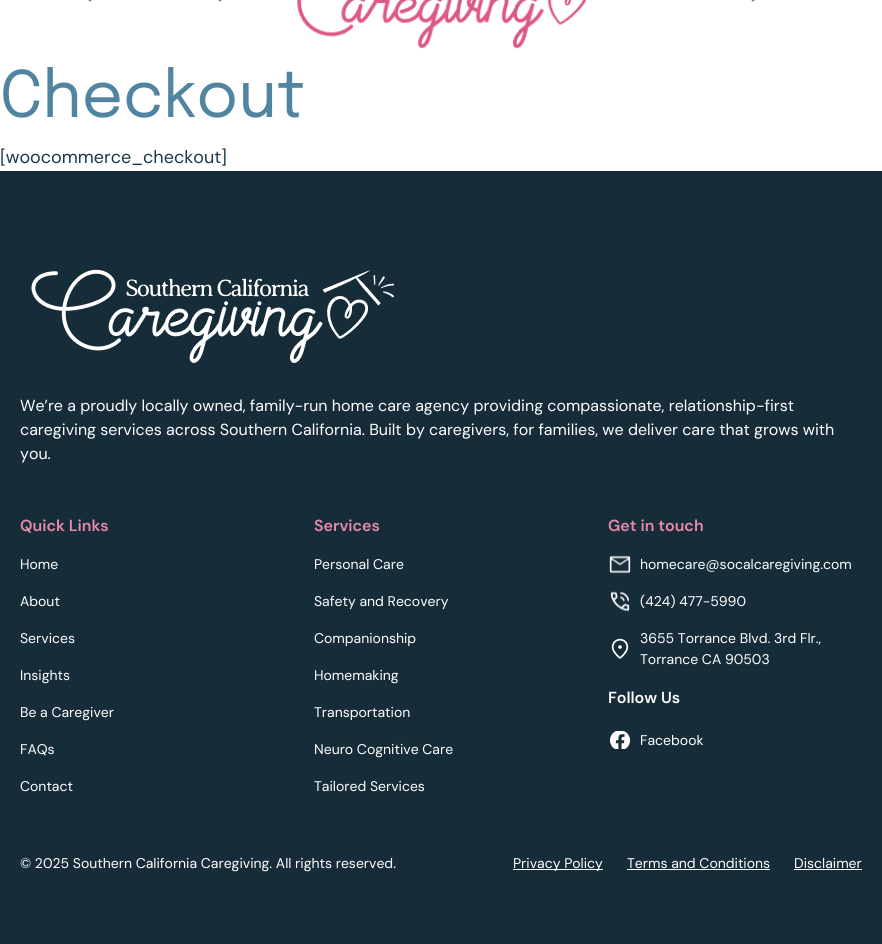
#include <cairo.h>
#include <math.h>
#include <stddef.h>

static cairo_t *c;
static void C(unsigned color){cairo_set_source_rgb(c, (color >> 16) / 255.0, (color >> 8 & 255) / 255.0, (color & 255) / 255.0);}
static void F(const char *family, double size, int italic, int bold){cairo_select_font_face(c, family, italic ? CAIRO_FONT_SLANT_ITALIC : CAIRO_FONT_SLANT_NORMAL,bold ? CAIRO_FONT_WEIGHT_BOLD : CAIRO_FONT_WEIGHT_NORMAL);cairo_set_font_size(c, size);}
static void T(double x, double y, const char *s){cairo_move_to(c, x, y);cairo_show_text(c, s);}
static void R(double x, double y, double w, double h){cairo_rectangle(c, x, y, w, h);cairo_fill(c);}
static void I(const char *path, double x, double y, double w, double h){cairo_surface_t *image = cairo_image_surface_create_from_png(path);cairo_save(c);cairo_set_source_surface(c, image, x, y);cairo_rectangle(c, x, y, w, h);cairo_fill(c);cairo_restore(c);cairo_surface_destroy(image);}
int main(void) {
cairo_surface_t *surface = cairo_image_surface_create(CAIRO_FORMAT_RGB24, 882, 944);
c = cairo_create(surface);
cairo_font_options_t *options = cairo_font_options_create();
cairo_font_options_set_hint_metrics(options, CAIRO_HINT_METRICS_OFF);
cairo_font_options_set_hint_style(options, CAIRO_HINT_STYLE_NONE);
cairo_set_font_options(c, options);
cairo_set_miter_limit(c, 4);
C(0xffffff);
cairo_paint(c);
cairo_new_path(c);
cairo_move_to(c,85,-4.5);
cairo_line_to(c,90,.5);
cairo_line_to(c,95,-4.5);
C(0x5184a1);
cairo_set_line_width(c,1.8);
cairo_stroke(c);
cairo_new_path(c);
cairo_move_to(c,215,-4.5);
cairo_line_to(c,220,.5);
cairo_line_to(c,225,-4.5);
cairo_stroke(c);
I("1.png",297,0,290,49);
cairo_new_path(c);
cairo_move_to(c,748,-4.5);
cairo_line_to(c,753,.5);
cairo_line_to(c,758,-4.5);
cairo_stroke(c);
F("Epilogue",64,0,0);
T(0,117,"Checkout");
F("DM Sans",18,0,0);
C(0x1c3848);
T(0,163,"[woocommerce_checkout]");
C(0x162c39);
R(0,171,882,773);
I("2.png",31,269,363,94);
F("DM Sans",16,0,0);
C(0xffffff);
T(20,411,"We’re a proudly locally owned, family-run home care agency providing compassionate, relationship-first");
T(20,435,"caregiving services across Southern California. Built by caregivers, for families, we deliver care that grows with");
T(20,459,"you.");
F("DM Sans SemiBold",16,0,0);
C(0xe78aab);
T(20,531,"Quick Links");
F("DM Sans",14,0,0);
C(0xffffff);
T(20,569,"Home");
T(20,606,"About");
T(20,643,"Services");
T(20,680,"Insights");
T(20,717,"Be a Caregiver");
T(20,754,"FAQs");
T(20,791,"Contact");
F("DM Sans SemiBold",16,0,0);
C(0xe78aab);
T(314,531,"Services");
F("DM Sans",14,0,0);
C(0xffffff);
T(314,569,"Personal Care");
T(314,606,"Safety and Recovery");
T(314,643,"Companionship");
T(314,680,"Homemaking");
T(314,717,"Transportation");
T(314,754,"Neuro Cognitive Care");
T(314,791,"Tailored Services");
F("DM Sans SemiBold",16,0,0);
C(0xe78aab);
T(608,531,"Get in touch");
I("3.png",609,555,22,19);
F("DM Sans",14,0,0);
C(0xffffff);
T(640,569,"homecare@socalcaregiving.com");
I("4.png",610,591,20,21);
T(640,606,"(424) 477-5990");
I("5.png",611,638,18,21);
T(640,643,"3655 Torrance Blvd. 3rd Flr.,");
T(640,664,"Torrance CA 90503");
F("DM Sans SemiBold",16,0,0);
T(608,703,"Follow Us");
I("6.png",610,731,20,18);
F("DM Sans",14,0,0);
T(640,745,"Facebook");
T(20,868,"© 2025 Southern California Caregiving. All rights reserved.");
C(0xfefefe);
R(513,869,90,1);
C(0xffffff);
T(513,868,"Privacy Policy");
T(627,868,"Terms and Conditions");
C(0xfefefe);
R(627,869,143,1);
C(0xffffff);
T(794,868,"Disclaimer");
C(0xfefefe);
R(794,869,68,1);
cairo_surface_write_to_png(surface, "o.png");
cairo_font_options_destroy(options);
cairo_destroy(c);
cairo_surface_destroy(surface);
return 0;
}
